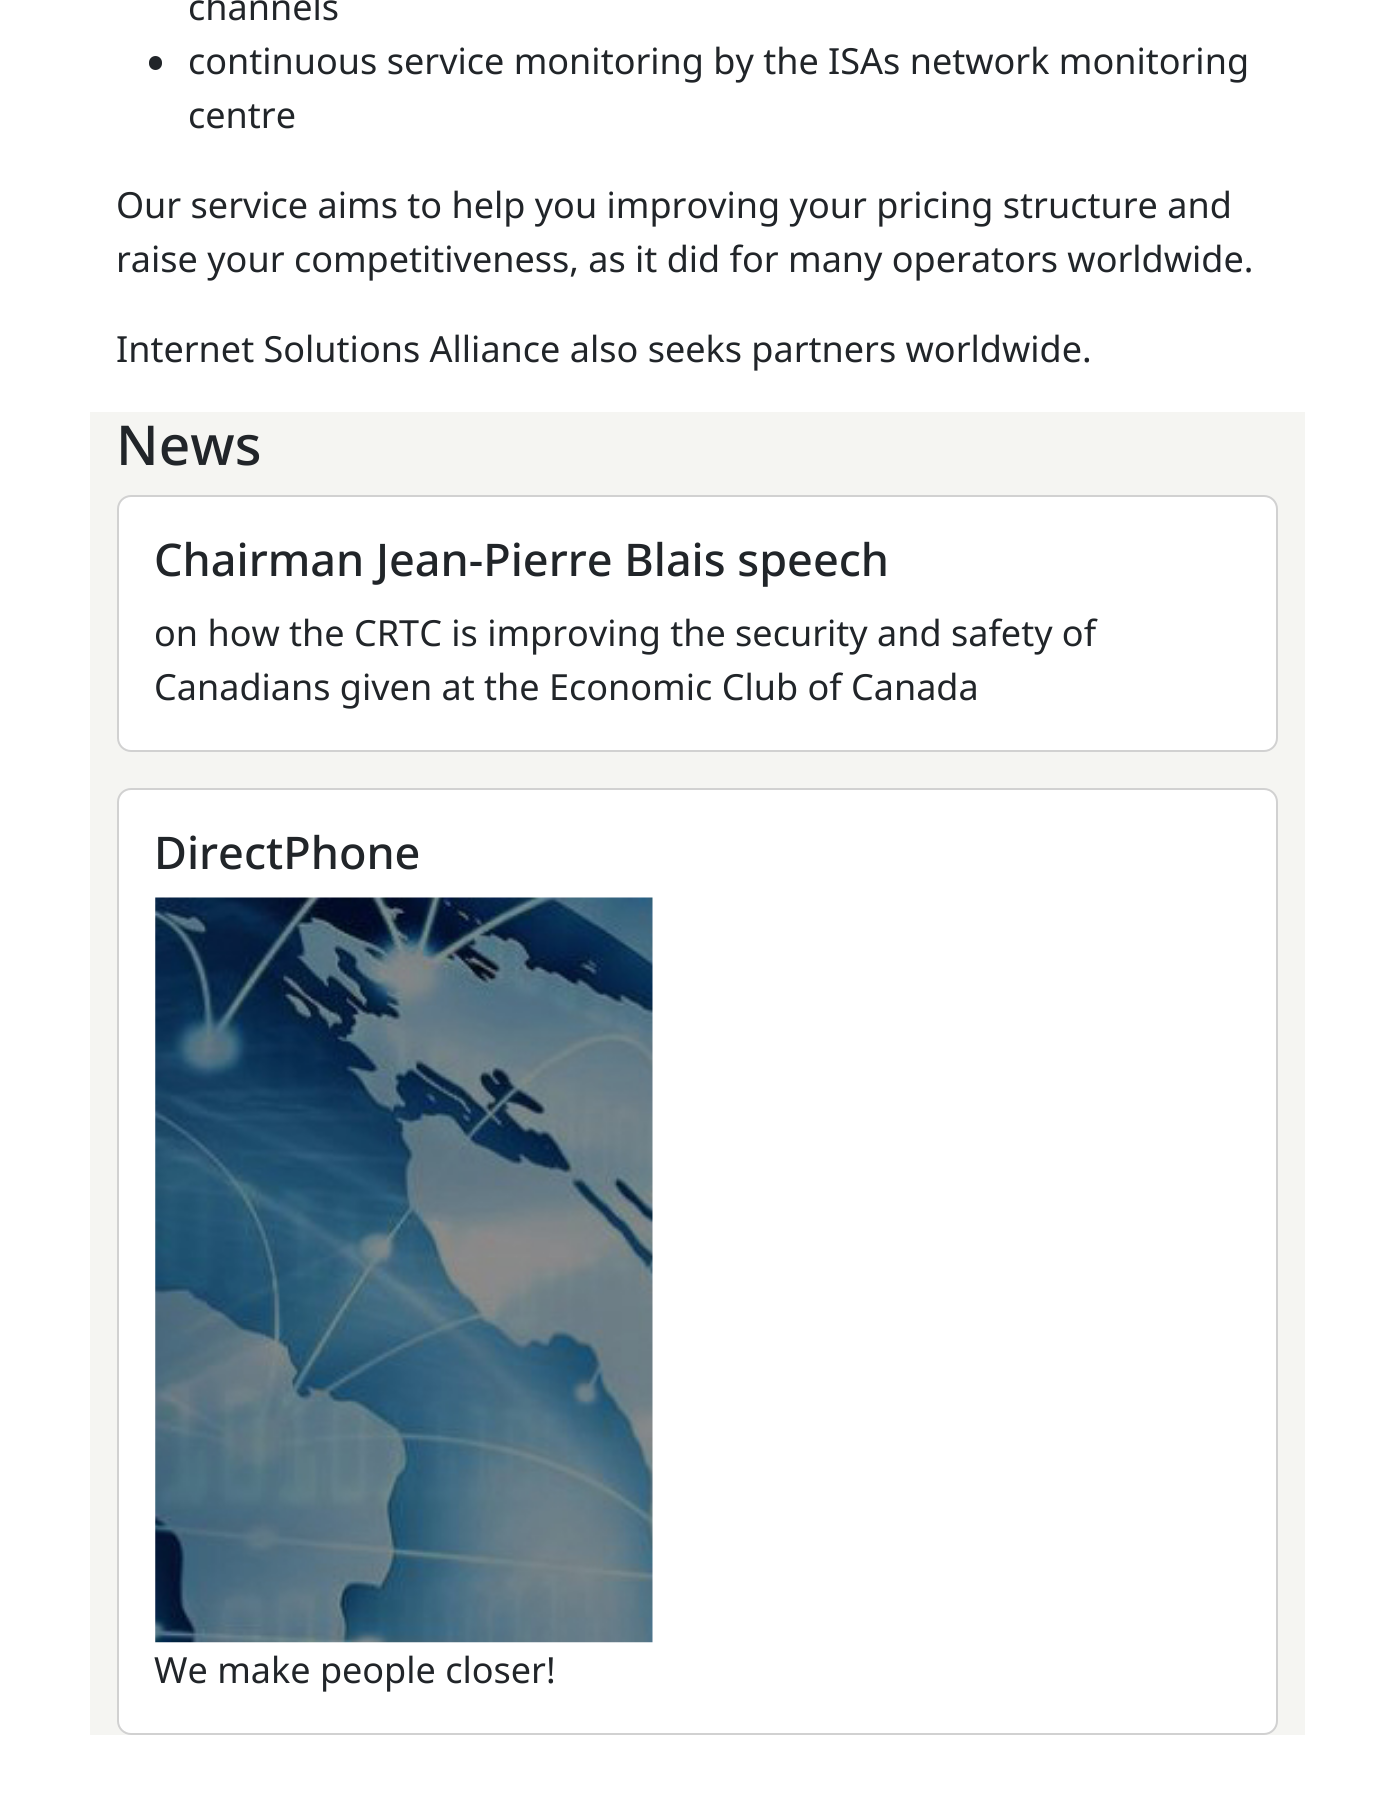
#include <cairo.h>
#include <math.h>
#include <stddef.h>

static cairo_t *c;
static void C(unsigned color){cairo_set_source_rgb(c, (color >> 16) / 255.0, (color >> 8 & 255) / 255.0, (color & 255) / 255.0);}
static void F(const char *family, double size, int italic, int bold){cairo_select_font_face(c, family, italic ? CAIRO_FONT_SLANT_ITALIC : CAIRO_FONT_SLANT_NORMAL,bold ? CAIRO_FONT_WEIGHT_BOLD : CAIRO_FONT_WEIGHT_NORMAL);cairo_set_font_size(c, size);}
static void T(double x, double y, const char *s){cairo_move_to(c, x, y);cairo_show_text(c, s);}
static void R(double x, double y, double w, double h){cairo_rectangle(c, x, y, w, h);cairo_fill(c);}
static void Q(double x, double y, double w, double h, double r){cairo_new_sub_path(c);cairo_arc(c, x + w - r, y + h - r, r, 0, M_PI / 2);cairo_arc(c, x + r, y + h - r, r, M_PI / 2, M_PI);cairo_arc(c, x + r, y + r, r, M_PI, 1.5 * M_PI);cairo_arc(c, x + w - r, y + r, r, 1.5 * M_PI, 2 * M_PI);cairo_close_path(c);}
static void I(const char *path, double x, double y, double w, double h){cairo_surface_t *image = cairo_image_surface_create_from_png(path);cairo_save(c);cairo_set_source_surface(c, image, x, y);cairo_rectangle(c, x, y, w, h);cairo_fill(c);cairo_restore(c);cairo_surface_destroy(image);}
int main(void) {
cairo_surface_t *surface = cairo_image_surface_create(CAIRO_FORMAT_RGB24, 1391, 1814);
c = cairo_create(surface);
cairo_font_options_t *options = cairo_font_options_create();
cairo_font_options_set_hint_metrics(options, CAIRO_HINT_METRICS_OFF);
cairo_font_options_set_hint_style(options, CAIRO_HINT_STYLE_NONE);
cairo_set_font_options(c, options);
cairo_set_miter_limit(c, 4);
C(0xffffff);
cairo_paint(c);
F("Noto Sans",36,0,0);
C(0x212529);
T(188,20,"channels");
Q(149,56,13,14,6.5);
cairo_fill(c);
T(188,74,"continuous service monitoring by the ISAs network monitoring");
T(188,128,"centre");
T(116,218,"Our service aims to help you improving your pricing structure and");
T(116,272,"raise your competitiveness, as it did for many operators worldwide.");
T(116,362,"Internet Solutions Alliance also seeks partners worldwide.");
C(0xf5f5f2);
R(90,412,1215,1323);
F("Noto Sans Medium",55,0,0);
C(0x212529);
T(116,465,"News");
C(0xffffff);
Q(117,495,1161,257,14);
cairo_fill(c);
Q(118,496,1159,255,13);
cairo_set_source_rgba(c,0,0,0,0.18);
cairo_stroke(c);
F("Noto Sans Medium",45,0,0);
C(0x212529);
T(154,576,"Chairman Jean-Pierre Blais speech");
F("Noto Sans",36,0,0);
T(154,646,"on how the CRTC is improving the security and safety of");
T(154,700,"Canadians given at the Economic Club of Canada");
C(0xffffff);
Q(117,788,1161,947,14);
cairo_fill(c);
Q(118,789,1159,945,13);
cairo_set_source_rgba(c,0,0,0,0.18);
cairo_stroke(c);
F("Noto Sans Medium",45,0,0);
C(0x212529);
T(154,869,"DirectPhone");
I("1.png",155,897,498,746);
F("Noto Sans",36,0,0);
T(154,1683,"We make people closer!");
cairo_surface_write_to_png(surface, "o.png");
cairo_font_options_destroy(options);
cairo_destroy(c);
cairo_surface_destroy(surface);
return 0;
}
